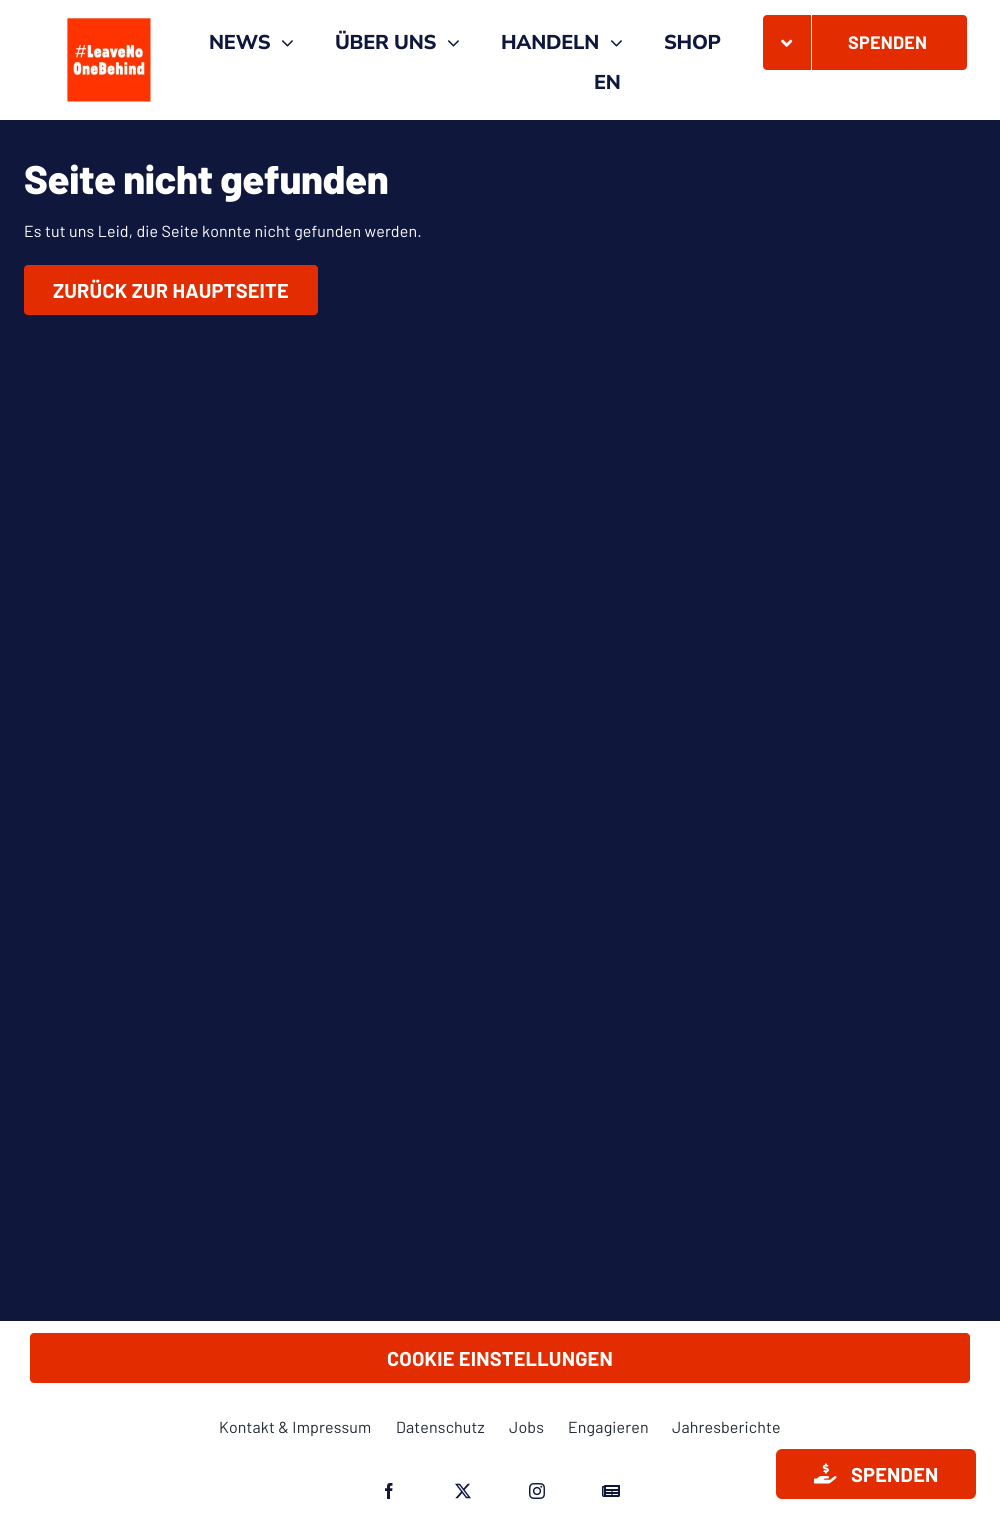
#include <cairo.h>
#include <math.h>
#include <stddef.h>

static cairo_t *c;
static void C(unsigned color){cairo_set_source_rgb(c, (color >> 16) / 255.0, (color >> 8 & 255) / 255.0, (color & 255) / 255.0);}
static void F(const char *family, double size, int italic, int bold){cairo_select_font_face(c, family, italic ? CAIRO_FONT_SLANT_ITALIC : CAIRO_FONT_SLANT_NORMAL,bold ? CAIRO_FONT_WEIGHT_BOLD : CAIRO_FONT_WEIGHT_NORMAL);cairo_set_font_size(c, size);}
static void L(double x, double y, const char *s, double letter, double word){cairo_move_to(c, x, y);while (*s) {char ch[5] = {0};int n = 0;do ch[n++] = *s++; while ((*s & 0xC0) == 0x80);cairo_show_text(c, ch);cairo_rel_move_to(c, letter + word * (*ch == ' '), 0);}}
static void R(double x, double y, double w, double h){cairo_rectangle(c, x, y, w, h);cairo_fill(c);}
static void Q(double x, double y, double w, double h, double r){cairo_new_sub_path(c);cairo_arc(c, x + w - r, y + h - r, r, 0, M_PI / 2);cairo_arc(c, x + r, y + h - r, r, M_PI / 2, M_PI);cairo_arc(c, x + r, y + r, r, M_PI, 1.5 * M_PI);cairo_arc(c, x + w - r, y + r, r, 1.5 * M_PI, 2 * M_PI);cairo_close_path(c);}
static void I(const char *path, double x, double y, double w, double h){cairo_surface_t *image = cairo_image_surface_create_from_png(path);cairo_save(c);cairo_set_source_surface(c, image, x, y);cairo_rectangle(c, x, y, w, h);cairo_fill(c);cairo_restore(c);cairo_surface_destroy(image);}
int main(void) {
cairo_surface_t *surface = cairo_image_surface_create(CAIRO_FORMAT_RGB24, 1000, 1523);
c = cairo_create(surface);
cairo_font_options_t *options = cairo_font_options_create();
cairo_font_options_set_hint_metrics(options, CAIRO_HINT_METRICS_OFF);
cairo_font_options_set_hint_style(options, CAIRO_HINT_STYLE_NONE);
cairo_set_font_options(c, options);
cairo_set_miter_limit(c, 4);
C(0x0f173d);
cairo_paint(c);
C(0xffffff);
R(0,0,1000,120);
I("1.png",67,18,84,84);
F("Nunito Sans ExtraBold",20,0,0);
C(0x0f173d);
L(209,49,"NEWS",-.25,0);
I("2.png",281,40,12,7);
L(335,49,"ÜBER UNS",-.25,0);
I("2.png",447,40,12,7);
L(501,49,"HANDELN",-.25,0);
I("2.png",610,40,12,7);
L(664,49,"SHOP",-.25,0);
C(0xe32d00);
Q(763,15,204,55,4);
cairo_fill(c);
C(0xffffff);
R(811,15,1,55);
I("3.png",781,39,12,8);
F("Barlow",18,0,1);
L(848,49,"SPENDEN",.25,0);
F("Nunito Sans ExtraBold",20,0,0);
C(0x0f173d);
L(594,89,"EN",-.25,0);
F("Barlow ExtraBold",40,0,0);
C(0xffffff);
L(24,194,"Seite nicht gefunden",-.4,0);
F("Barlow",16,0,0);
L(24,237,"Es tut uns Leid, die Seite konnte nicht gefunden werden.",.15,0);
C(0xe32d00);
Q(24,265,294,50,4);
cairo_fill(c);
F("Barlow",20,0,1);
C(0xffffff);
L(53,298,"ZURÜCK ZUR HAUPTSEITE",.2,0);
R(0,1321,1000,202);
C(0xe32d00);
Q(30,1333,940,50,4);
cairo_fill(c);
C(0xffffff);
L(387,1366,"COOKIE EINSTELLUNGEN",.2,0);
F("Barlow",16,0,0);
C(0x212934);
L(219,1433,"Kontakt & Impressum",.15,0);
L(396,1433,"Datenschutz",.15,0);
L(509,1433,"Jobs",.15,0);
L(568,1433,"Engagieren",.15,0);
L(672,1433,"Jahresberichte",.15,0);
I("4.png",385,1483,8,16);
I("5.png",455,1483,16,16);
I("6.png",529,1483,16,16);
I("7.png",602,1485,18,12);
C(0xe32d00);
Q(776,1449,200,50,6);
cairo_fill(c);
I("8.png",814,1463,23,21);
F("Barlow",20,0,1);
C(0xffffff);
L(851,1482,"SPENDEN",.2,0);
cairo_surface_write_to_png(surface, "o.png");
cairo_font_options_destroy(options);
cairo_destroy(c);
cairo_surface_destroy(surface);
return 0;
}
